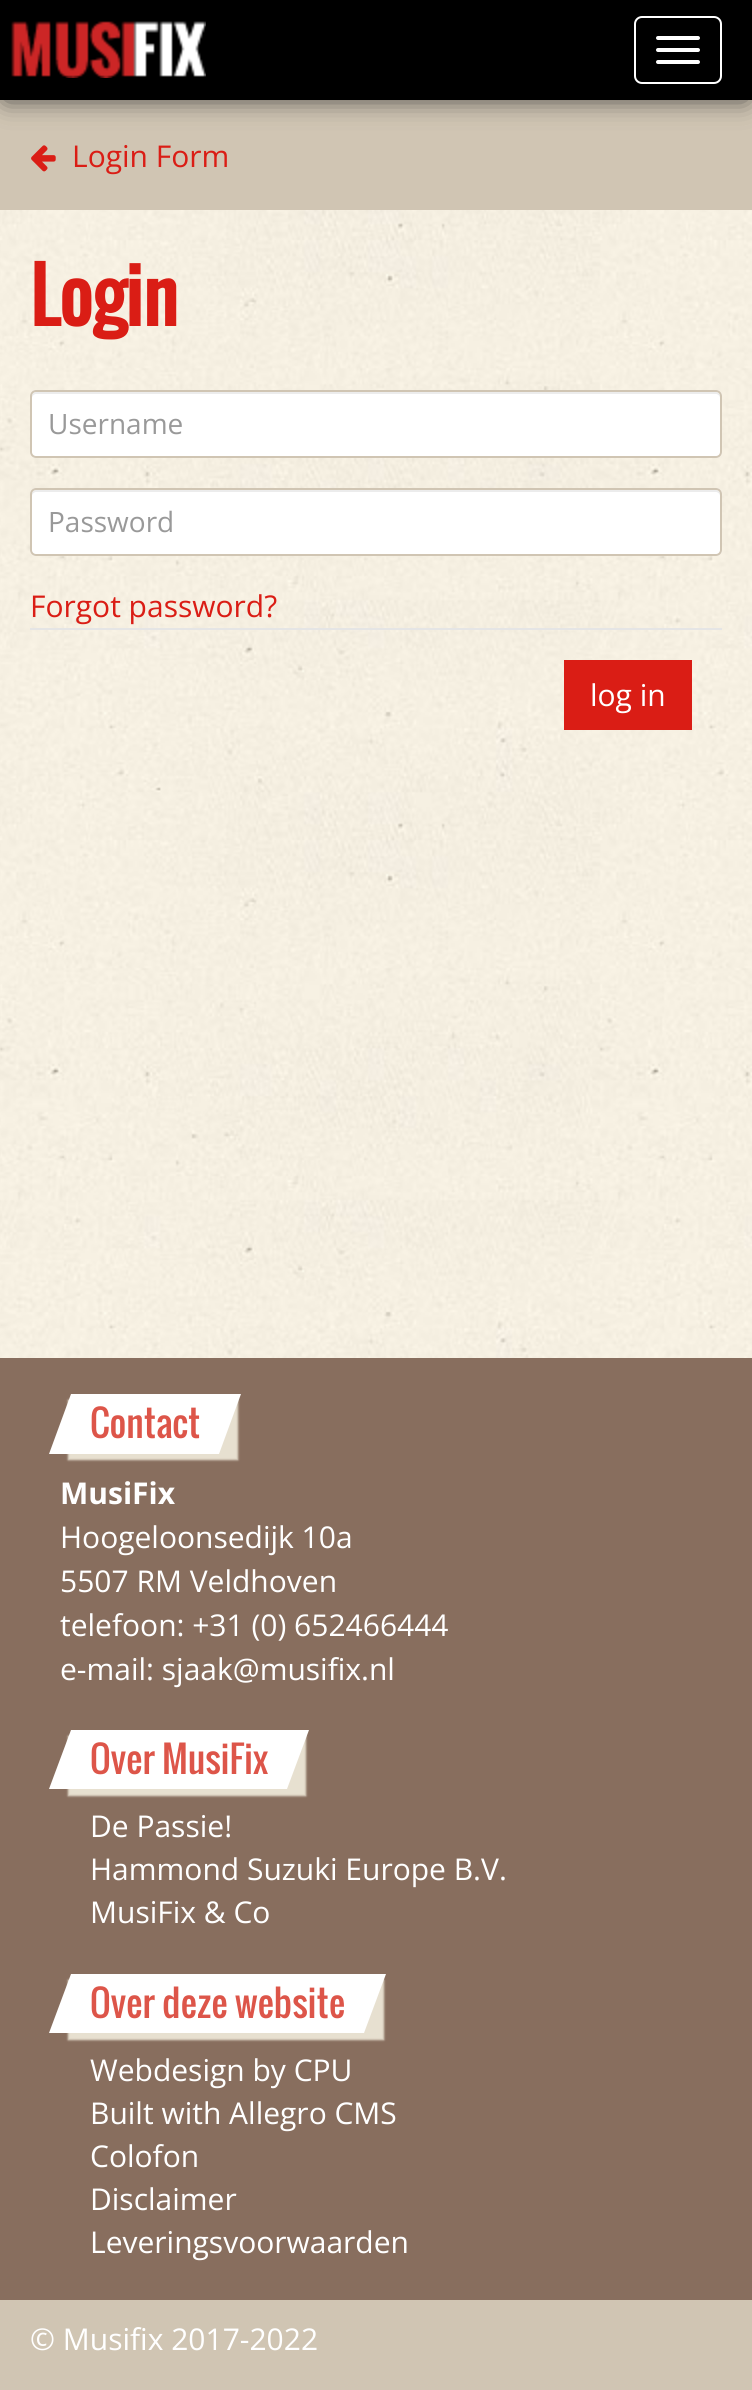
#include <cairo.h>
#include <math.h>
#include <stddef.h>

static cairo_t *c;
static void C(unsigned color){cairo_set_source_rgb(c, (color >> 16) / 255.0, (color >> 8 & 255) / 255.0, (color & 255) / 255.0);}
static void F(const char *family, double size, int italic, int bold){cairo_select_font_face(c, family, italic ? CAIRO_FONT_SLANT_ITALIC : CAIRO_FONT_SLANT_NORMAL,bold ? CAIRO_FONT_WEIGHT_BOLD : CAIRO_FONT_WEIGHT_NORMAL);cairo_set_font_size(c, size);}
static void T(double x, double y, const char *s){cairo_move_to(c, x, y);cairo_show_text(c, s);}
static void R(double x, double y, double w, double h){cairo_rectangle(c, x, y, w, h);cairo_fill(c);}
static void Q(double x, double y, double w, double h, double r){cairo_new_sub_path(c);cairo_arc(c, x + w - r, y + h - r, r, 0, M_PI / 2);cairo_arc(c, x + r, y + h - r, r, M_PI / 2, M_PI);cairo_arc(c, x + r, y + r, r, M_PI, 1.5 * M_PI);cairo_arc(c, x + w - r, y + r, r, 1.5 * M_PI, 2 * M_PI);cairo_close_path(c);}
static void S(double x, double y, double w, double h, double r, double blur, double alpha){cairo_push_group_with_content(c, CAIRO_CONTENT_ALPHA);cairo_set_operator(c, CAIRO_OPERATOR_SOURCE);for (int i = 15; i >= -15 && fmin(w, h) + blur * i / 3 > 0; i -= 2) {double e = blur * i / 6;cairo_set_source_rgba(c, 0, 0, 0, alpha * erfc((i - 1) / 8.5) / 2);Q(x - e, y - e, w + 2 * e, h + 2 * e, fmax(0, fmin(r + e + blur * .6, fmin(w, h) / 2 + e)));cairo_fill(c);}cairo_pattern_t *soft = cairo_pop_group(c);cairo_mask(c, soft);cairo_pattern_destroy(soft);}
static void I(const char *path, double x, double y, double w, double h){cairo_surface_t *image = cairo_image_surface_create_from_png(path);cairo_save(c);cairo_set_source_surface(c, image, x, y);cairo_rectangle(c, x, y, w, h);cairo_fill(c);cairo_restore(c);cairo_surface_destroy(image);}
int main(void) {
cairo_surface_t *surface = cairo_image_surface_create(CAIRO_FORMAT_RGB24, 752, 2390);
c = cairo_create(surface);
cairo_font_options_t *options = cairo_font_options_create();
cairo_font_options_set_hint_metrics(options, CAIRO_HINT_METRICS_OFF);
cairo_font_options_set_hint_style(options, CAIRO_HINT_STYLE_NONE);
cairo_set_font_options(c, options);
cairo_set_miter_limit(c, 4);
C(0xffffff);
cairo_paint(c);
I("1.png",0,210,752,1148);
C(0xd0c5b3);
R(0,100,752,110);
C(0x333333);
S(6,10,740,88,0,13,1);
C(0x000000);
R(0,0,752,100);
I("2.png",11,21,195,57);
Q(635,17,86,66,7);
C(0xffffff);
cairo_stroke(c);
Q(656,36,44,4,2);
cairo_fill(c);
Q(656,48,44,4,2);
cairo_fill(c);
Q(656,60,44,4,2);
cairo_fill(c);
I("3.png",31,145,25,27);
F("Open Sans",30,0,0);
C(0xda1d15);
T(72,167,"Login Form");
F("Oswald",72,0,1);
T(30,326,"Login");
C(0xffffff);
Q(30,390,692,68,6);
cairo_fill(c);
C(0xececec);
cairo_new_path(c);
cairo_move_to(c,36,394);
cairo_line_to(c,716,394);
cairo_curve_to(c,718,394,720,396,720,398);
cairo_line_to(c,720,396);
cairo_curve_to(c,720,394,718,392,716,392);
cairo_line_to(c,36,392);
cairo_curve_to(c,34,392,32,394,32,396);
cairo_line_to(c,32,398);
cairo_curve_to(c,32,396,34,394,36,394);
cairo_close_path(c);
cairo_fill(c);
Q(31,391,690,66,5);
C(0xd0c5b3);
cairo_stroke(c);
F("Open Sans",28,0,0);
C(0x999999);
T(48,434,"Username");
C(0xffffff);
Q(30,488,692,68,6);
cairo_fill(c);
C(0xececec);
cairo_new_path(c);
cairo_move_to(c,36,492);
cairo_line_to(c,716,492);
cairo_curve_to(c,718,492,720,494,720,496);
cairo_line_to(c,720,494);
cairo_curve_to(c,720,492,718,490,716,490);
cairo_line_to(c,36,490);
cairo_curve_to(c,34,490,32,492,32,494);
cairo_line_to(c,32,496);
cairo_curve_to(c,32,494,34,492,36,492);
cairo_close_path(c);
cairo_fill(c);
Q(31,489,690,66,5);
C(0xd0c5b3);
cairo_stroke(c);
C(0x999999);
T(48,532,"Password");
F("Open Sans",30,0,0);
C(0xda1d15);
T(30,617,"Forgot password?");
C(0xe5e5e5);
R(30,628,692,2);
C(0xda1d15);
R(564,660,128,70);
C(0xffffff);
T(590,706,"log in");
C(0x886e5e);
R(0,1358,752,942);
C(0xe7e0d0);
S(68,1400,170,60,0,1,1);
C(0xffffff);
cairo_new_path(c);
cairo_move_to(c,71,1394);
cairo_line_to(c,241,1394);
cairo_line_to(c,219,1454);
cairo_line_to(c,49,1454);
cairo_close_path(c);
cairo_fill(c);
F("Oswald",36,0,0);
C(0xdd5549);
T(90,1438,"Contact");
F("Open Sans",30,0,1);
C(0xffffff);
T(60,1504,"MusiFix");
F("Open Sans",30,0,0);
T(60,1548,"Hoogeloonsedijk 10a");
T(60,1592,"5507 RM Veldhoven");
T(60,1636,"telefoon: +31 (0) 652466444");
T(60,1680,"e-mail: sjaak@musifix.nl");
C(0xe7e0d0);
S(68,1736,238,60,0,1,1);
C(0xffffff);
cairo_new_path(c);
cairo_move_to(c,71,1730);
cairo_line_to(c,309,1730);
cairo_line_to(c,287,1789);
cairo_line_to(c,49,1789);
cairo_close_path(c);
cairo_fill(c);
F("Oswald",36,0,0);
C(0xdd5549);
T(90,1774,"Over MusiFix");
F("Open Sans",30,0,0);
C(0xffffff);
T(90,1837,"De Passie!");
T(90,1880,"Hammond Suzuki Europe B.V.");
T(90,1923,"MusiFix & Co");
C(0xe7e0d0);
S(68,1980,316,60,0,1,1);
C(0xffffff);
cairo_new_path(c);
cairo_move_to(c,71,1974);
cairo_line_to(c,386,1974);
cairo_line_to(c,364,2033);
cairo_line_to(c,49,2033);
cairo_close_path(c);
cairo_fill(c);
F("Oswald",36,0,0);
C(0xdd5549);
T(90,2018,"Over deze website");
F("Open Sans",30,0,0);
C(0xffffff);
T(90,2081,"Webdesign by CPU");
T(90,2124,"Built with Allegro CMS");
T(90,2167,"Colofon");
T(90,2210,"Disclaimer");
T(90,2253,"Leveringsvoorwaarden");
C(0xd0c5b3);
R(0,2300,752,90);
C(0xffffff);
T(30,2350,"© Musifix 2017-2022");
cairo_surface_write_to_png(surface, "o.png");
cairo_font_options_destroy(options);
cairo_destroy(c);
cairo_surface_destroy(surface);
return 0;
}
